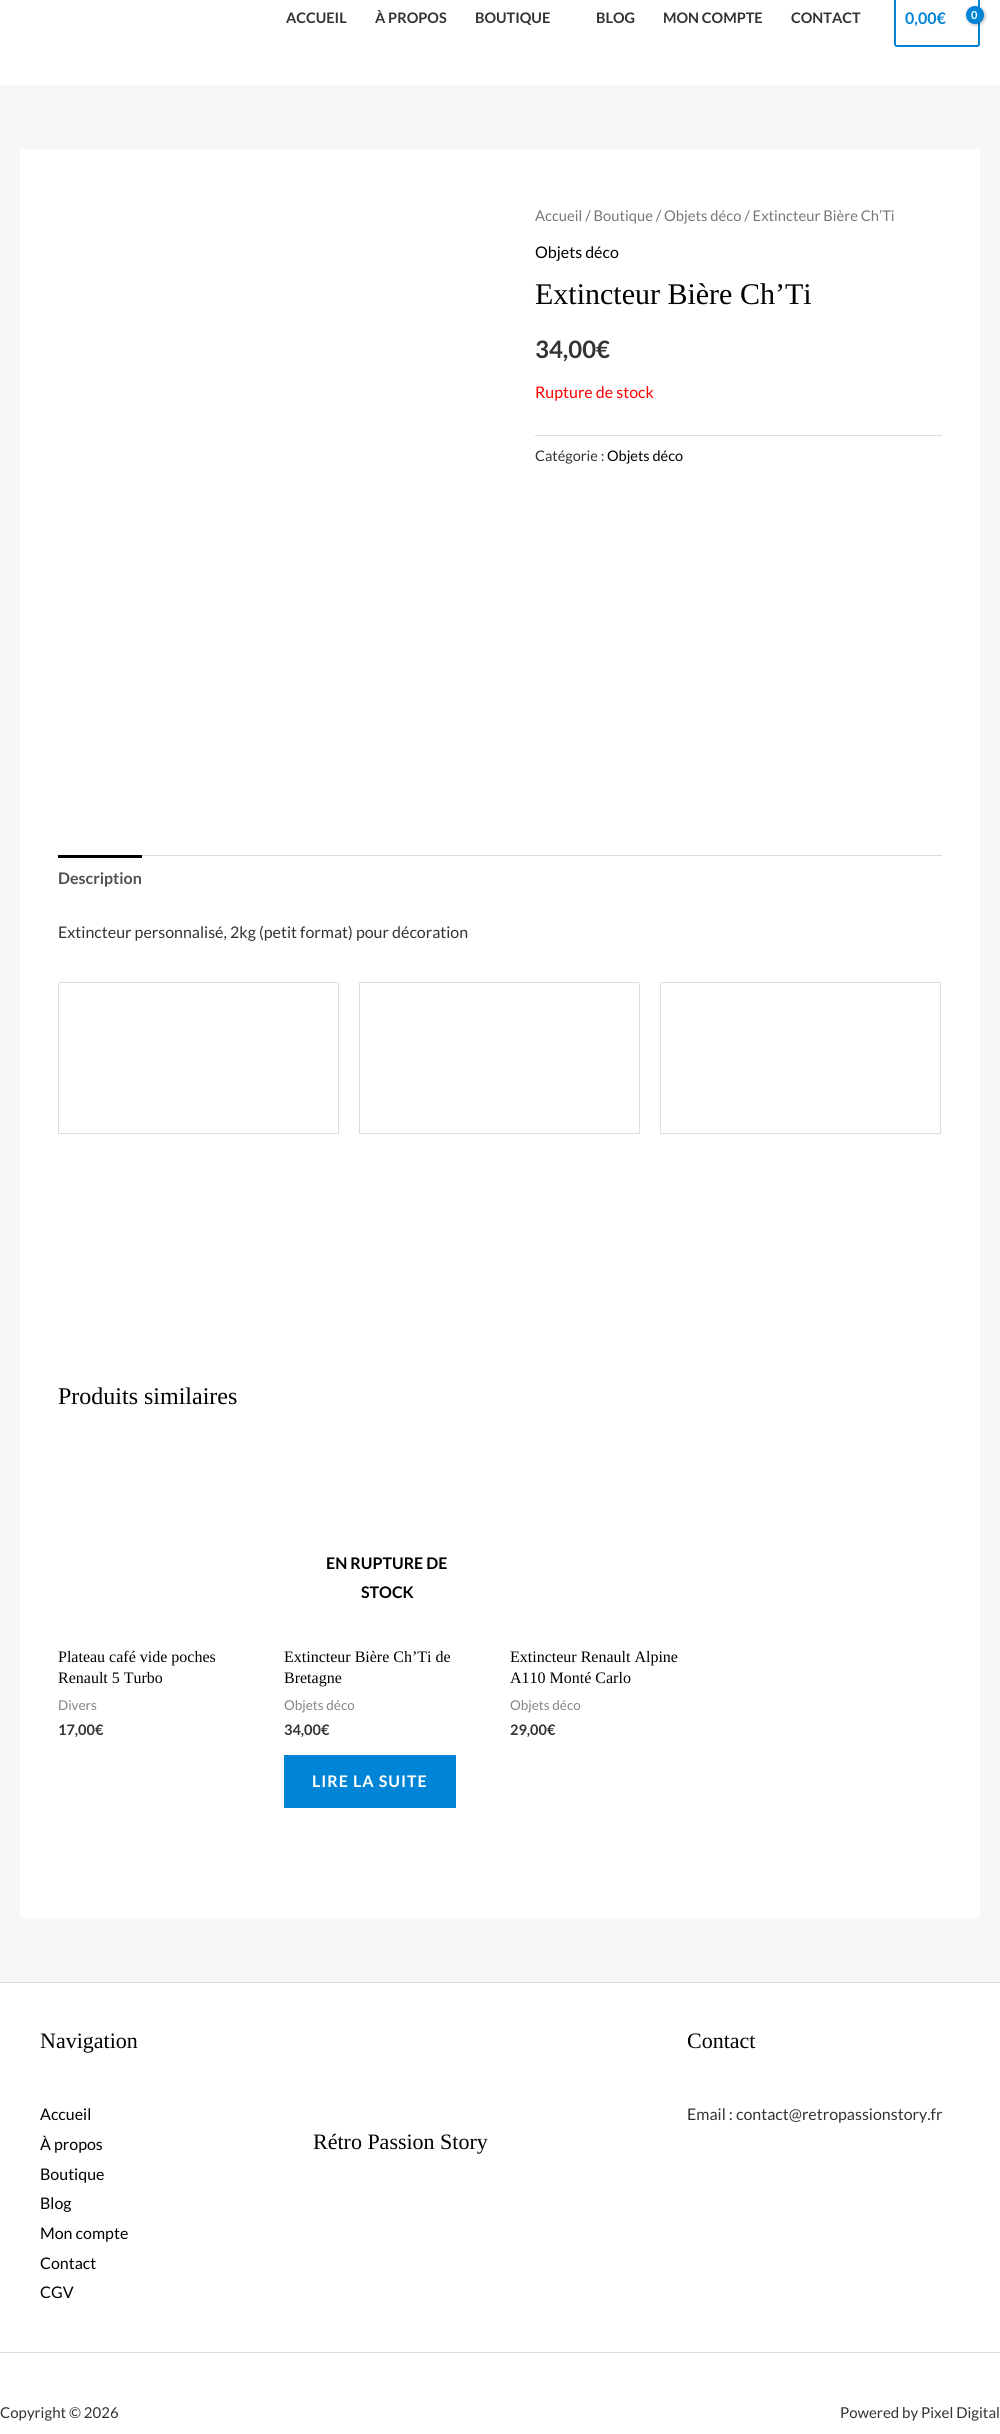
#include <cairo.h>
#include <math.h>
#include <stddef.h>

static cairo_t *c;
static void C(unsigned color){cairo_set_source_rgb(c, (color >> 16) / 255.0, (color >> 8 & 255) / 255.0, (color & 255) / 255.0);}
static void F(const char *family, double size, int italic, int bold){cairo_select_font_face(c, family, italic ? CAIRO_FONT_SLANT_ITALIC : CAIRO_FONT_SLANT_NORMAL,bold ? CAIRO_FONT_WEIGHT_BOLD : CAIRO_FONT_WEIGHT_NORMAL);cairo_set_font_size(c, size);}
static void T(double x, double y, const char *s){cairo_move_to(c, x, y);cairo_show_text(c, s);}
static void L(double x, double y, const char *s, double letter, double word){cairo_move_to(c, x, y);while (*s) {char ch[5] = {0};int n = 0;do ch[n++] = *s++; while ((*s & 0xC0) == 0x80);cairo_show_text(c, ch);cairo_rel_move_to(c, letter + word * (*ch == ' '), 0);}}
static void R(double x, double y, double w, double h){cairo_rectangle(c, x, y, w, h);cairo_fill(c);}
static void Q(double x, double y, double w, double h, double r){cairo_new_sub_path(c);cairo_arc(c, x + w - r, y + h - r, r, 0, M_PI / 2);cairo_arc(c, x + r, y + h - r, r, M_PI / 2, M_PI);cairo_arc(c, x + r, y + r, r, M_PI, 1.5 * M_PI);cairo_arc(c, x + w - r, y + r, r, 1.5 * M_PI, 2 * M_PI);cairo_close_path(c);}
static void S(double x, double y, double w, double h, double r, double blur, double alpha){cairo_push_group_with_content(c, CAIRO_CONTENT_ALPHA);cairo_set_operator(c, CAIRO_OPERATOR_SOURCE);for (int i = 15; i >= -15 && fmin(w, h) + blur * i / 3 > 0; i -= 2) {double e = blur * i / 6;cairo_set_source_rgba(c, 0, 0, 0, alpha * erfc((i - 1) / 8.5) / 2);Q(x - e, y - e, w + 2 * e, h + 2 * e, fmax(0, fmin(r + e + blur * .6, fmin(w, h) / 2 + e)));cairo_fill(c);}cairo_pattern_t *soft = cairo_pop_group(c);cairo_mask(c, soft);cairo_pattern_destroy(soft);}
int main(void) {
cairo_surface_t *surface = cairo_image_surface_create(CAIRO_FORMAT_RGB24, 1000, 2434);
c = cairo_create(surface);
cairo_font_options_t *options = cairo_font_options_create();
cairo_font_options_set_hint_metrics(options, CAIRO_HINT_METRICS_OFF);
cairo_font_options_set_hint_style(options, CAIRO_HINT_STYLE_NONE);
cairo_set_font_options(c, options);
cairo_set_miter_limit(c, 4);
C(0xf5f7f9);
cairo_paint(c);
C(0xffffff);
R(0,0,1000,85);
F("Lato",14.5,0,1);
C(0x333333);
T(286,23,"ACCUEIL");
T(375,23,"À PROPOS");
T(475,23,"BOUTIQUE");
T(596,23,"BLOG");
T(663,23,"MON COMPTE");
T(791,23,"CONTACT");
Q(895,-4,84,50,2);
C(0x0084d6);
cairo_stroke(c);
F("Lato",16,0,1);
T(905,24,"0,00€");
C(0x000000);
S(967,7,18,18,9,1.5,.3);
C(0x0084d6);
cairo_arc(c,975,15,9,0,2 * M_PI);
cairo_fill(c);
F("Lato",11,0,1);
C(0xffffff);
T(971,19,"0");
R(20,149,960,1769);
F("Lato",14.75,0,0);
C(0x777777);
T(535,221,"Accueil / Boutique / Objets déco / Extincteur Bière Ch’Ti");
F("Lato",16,0,0);
C(0x000000);
T(535,258,"Objets déco");
F("Liberation Serif",30,0,0);
T(535,304,"Extincteur Bière Ch’Ti");
F("Lato",24,0,1);
C(0x333333);
T(535,358,"34,00€");
F("Lato",16,0,0);
C(0xff0000);
T(535,398,"Rupture de stock");
C(0xdddddd);
R(535,435,407,1);
F("Lato",14.5,0,0);
C(0x333333);
T(535,461,"Catégorie :");
C(0x000000);
T(607,461,"Objets déco");
C(0xdddddd);
R(142,855,800,1);
C(0x000000);
R(58,855,84,3);
F("Lato",16,0,1);
C(0x515151);
T(58,884,"Description");
F("Lato",16,0,0);
C(0x333333);
T(58,938,"Extincteur personnalisé, 2kg (petit format) pour décoration");
cairo_new_path(c);
cairo_move_to(c,60,982.5);
cairo_line_to(c,337,982.5);
cairo_curve_to(c,338,982.5,338.5,983,338.5,984);
cairo_line_to(c,338.5,1133.5);
cairo_line_to(c,58.5,1133.5);
cairo_line_to(c,58.5,984);
cairo_curve_to(c,58.5,983,59,982.5,60,982.5);
cairo_close_path(c);
C(0xdddddd);
cairo_set_line_width(c,1);
cairo_stroke(c);
cairo_new_path(c);
cairo_move_to(c,361,982.5);
cairo_line_to(c,638,982.5);
cairo_curve_to(c,639,982.5,639.5,983,639.5,984);
cairo_line_to(c,639.5,1133.5);
cairo_line_to(c,359.5,1133.5);
cairo_line_to(c,359.5,984);
cairo_curve_to(c,359.5,983,360,982.5,361,982.5);
cairo_close_path(c);
cairo_stroke(c);
cairo_new_path(c);
cairo_move_to(c,662,982.5);
cairo_line_to(c,939,982.5);
cairo_curve_to(c,940,982.5,940.5,983,940.5,984);
cairo_line_to(c,940.5,1133.5);
cairo_line_to(c,660.5,1133.5);
cairo_line_to(c,660.5,984);
cairo_curve_to(c,660.5,983,661,982.5,662,982.5);
cairo_close_path(c);
cairo_stroke(c);
F("Liberation Serif",24,0,0);
C(0x000000);
T(58,1404,"Produits similaires");
F("Liberation Serif",16,0,0);
T(58,1662,"Plateau café vide poches");
T(58,1683,"Renault 5 Turbo");
F("Lato",13.5,0,0);
C(0x858585);
T(58,1710,"Divers");
F("Lato",14.5,0,1);
C(0x333333);
T(58,1735,"17,00€");
F("Lato",16,0,1);
C(0x000000);
T(326,1569,"EN RUPTURE DE");
T(361,1598,"STOCK");
F("Liberation Serif",16,0,0);
T(284,1662,"Extincteur Bière Ch’Ti de");
T(284,1683,"Bretagne");
F("Lato",13.5,0,0);
C(0x858585);
T(284,1710,"Objets déco");
F("Lato",14.5,0,1);
C(0x333333);
T(284,1735,"34,00€");
C(0x0084d6);
R(284,1755,172,53);
F("Lato",16,0,1);
C(0xffffff);
L(312,1787,"LIRE LA SUITE",1,0);
F("Liberation Serif",16,0,0);
C(0x000000);
T(510,1662,"Extincteur Renault Alpine");
T(510,1683,"A110 Monté Carlo");
F("Lato",13.5,0,0);
C(0x858585);
T(510,1710,"Objets déco");
F("Lato",14.5,0,1);
C(0x333333);
T(510,1735,"29,00€");
C(0xffffff);
R(0,1983,1000,451);
C(0xdddddd);
R(0,1982,1000,1);
F("Liberation Serif",22,0,0);
C(0x000000);
T(40,2048,"Navigation");
F("Lato",16,0,0);
T(40,2120,"Accueil");
T(40,2150,"À propos");
T(40,2180,"Boutique");
T(40,2209,"Blog");
T(40,2239,"Mon compte");
T(40,2269,"Contact");
T(40,2298,"CGV");
F("Liberation Serif",22,0,0);
T(687,2048,"Contact");
F("Lato",16,0,0);
C(0x333333);
T(687,2120,"Email : contact@retropassionstory.fr");
F("Liberation Serif",22,0,0);
C(0x000000);
T(313,2149,"Rétro Passion Story");
C(0xdddddd);
R(0,2352,1000,1);
F("Lato",15,0,0);
C(0x333333);
T(0,2418,"Copyright © 2026");
T(840,2418,"Powered by Pixel Digital");
cairo_surface_write_to_png(surface, "o.png");
cairo_font_options_destroy(options);
cairo_destroy(c);
cairo_surface_destroy(surface);
return 0;
}
